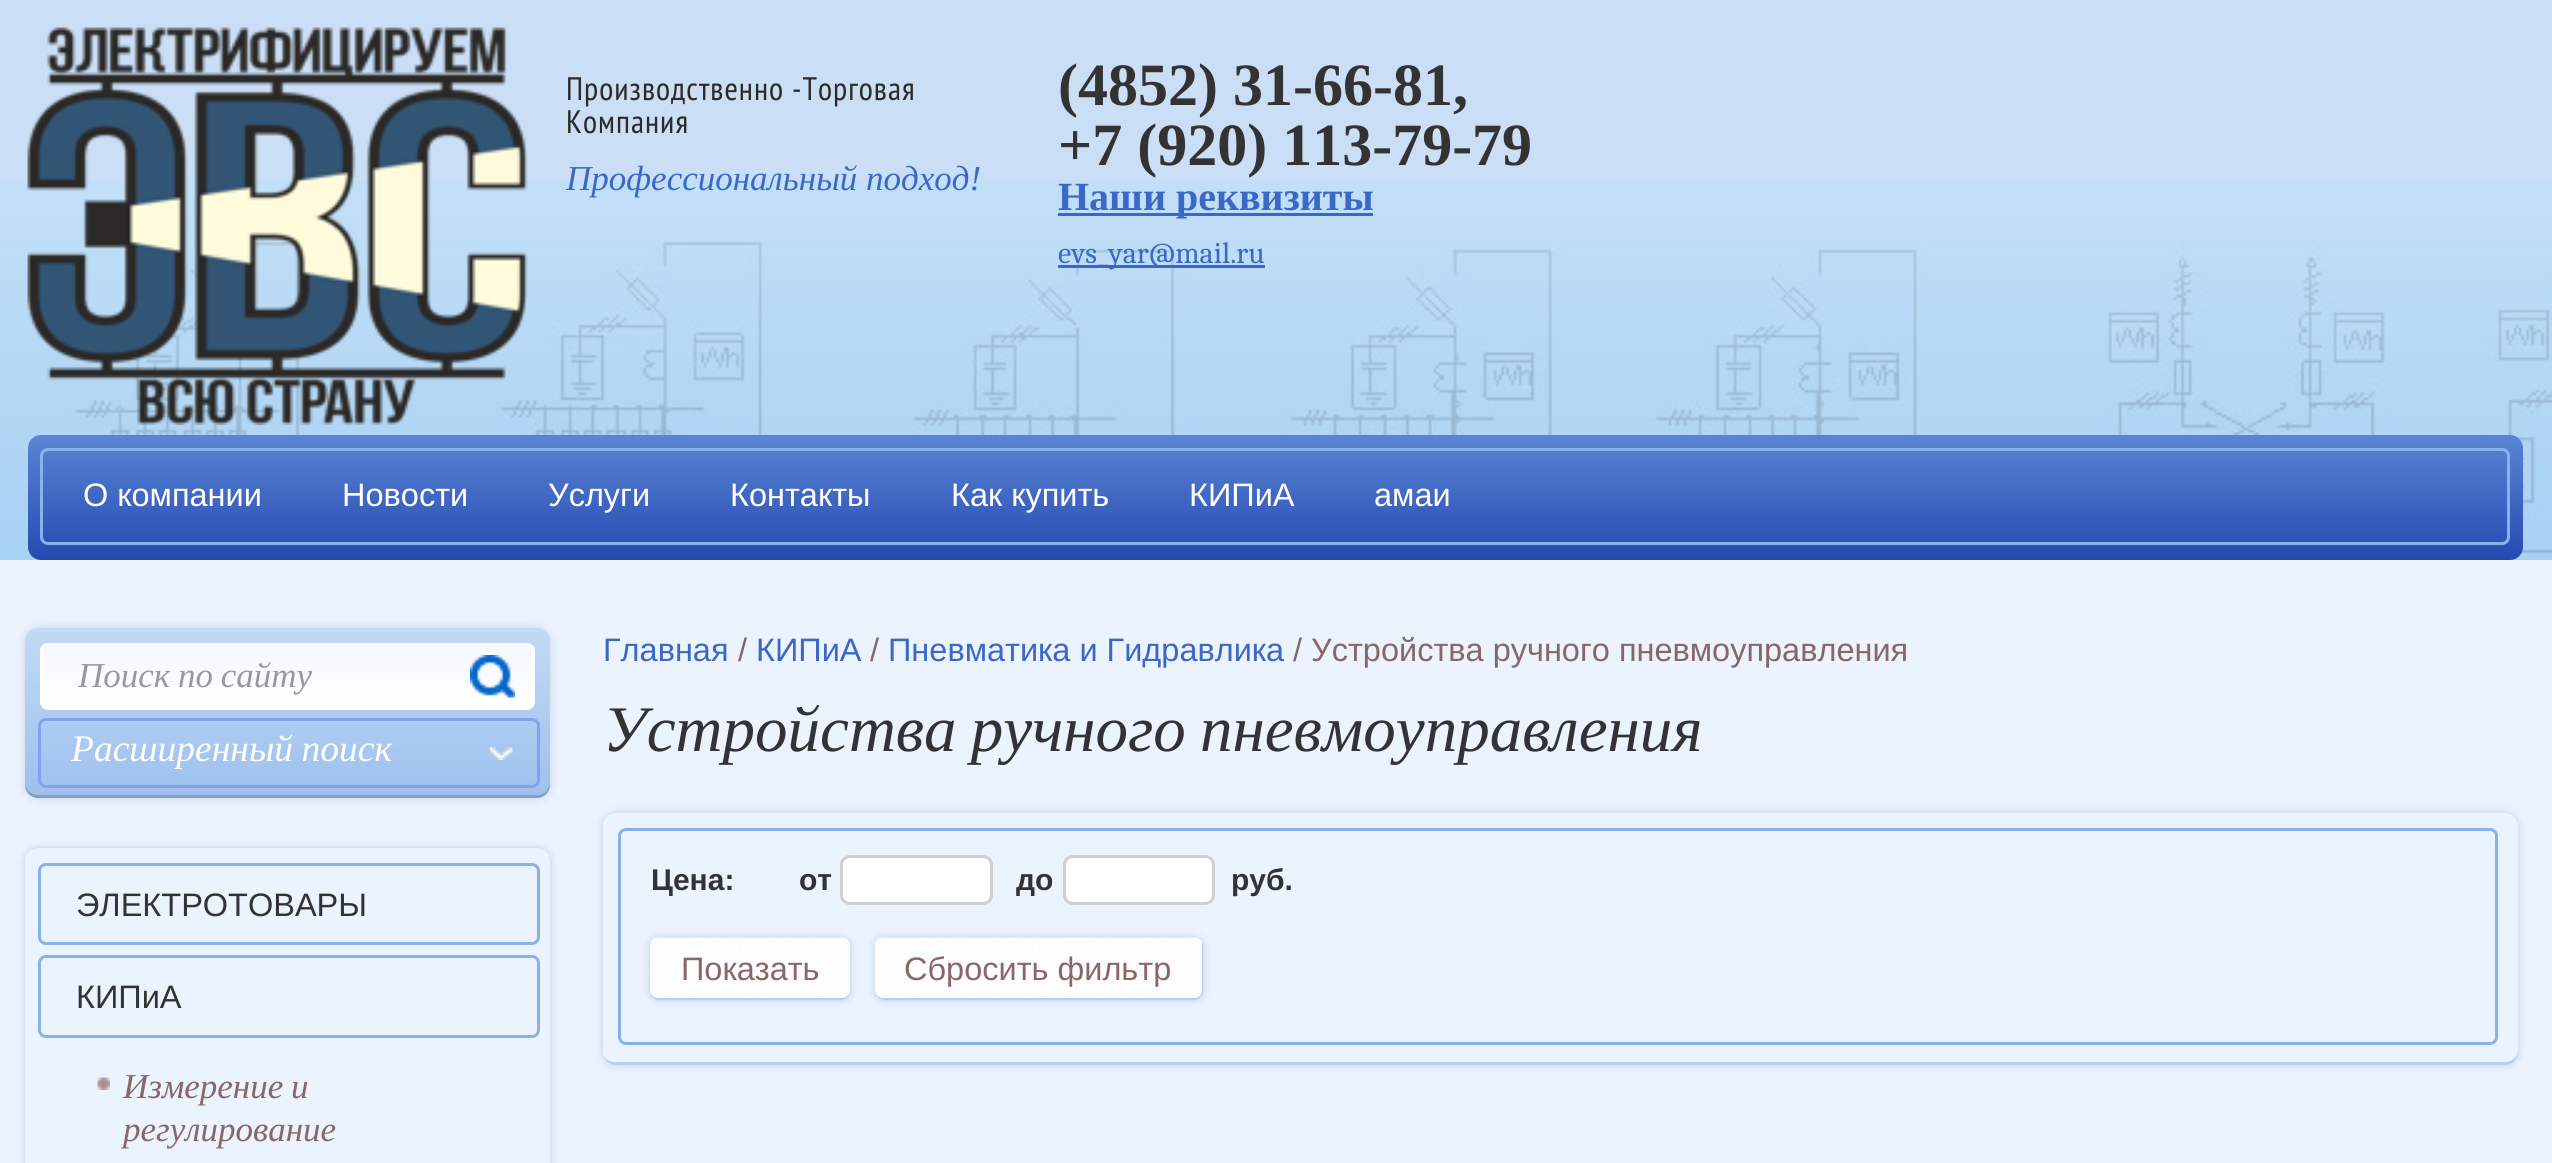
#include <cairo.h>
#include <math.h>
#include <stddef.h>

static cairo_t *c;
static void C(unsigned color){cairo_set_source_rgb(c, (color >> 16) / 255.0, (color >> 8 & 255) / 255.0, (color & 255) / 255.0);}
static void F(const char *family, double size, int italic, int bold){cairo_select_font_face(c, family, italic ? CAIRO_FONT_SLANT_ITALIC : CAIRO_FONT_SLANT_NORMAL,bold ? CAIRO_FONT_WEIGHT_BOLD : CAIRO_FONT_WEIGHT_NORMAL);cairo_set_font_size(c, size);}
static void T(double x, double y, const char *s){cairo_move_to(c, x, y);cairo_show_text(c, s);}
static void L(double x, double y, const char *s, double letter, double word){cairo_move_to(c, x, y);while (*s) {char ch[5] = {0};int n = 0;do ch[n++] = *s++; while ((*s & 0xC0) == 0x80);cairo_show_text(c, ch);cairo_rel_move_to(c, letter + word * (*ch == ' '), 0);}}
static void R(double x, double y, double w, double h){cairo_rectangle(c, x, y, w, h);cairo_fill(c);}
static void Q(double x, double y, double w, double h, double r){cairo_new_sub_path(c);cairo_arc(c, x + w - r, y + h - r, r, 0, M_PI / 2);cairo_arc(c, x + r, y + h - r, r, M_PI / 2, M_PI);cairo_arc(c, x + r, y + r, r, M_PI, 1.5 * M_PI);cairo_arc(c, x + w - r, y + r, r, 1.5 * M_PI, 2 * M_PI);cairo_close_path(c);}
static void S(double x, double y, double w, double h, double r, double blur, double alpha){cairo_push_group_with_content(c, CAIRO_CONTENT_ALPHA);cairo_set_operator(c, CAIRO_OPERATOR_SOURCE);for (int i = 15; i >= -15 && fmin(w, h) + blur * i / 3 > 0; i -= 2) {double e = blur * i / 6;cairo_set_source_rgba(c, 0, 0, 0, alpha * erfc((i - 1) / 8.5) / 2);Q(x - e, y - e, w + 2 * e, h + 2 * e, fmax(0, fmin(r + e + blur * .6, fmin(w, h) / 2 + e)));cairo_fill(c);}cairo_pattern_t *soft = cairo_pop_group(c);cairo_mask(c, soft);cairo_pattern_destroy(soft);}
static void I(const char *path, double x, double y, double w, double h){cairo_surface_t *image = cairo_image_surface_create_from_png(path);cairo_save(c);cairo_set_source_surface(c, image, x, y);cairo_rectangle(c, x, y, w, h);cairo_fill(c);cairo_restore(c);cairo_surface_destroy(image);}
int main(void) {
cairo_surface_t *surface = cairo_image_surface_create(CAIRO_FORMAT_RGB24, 2552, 1163);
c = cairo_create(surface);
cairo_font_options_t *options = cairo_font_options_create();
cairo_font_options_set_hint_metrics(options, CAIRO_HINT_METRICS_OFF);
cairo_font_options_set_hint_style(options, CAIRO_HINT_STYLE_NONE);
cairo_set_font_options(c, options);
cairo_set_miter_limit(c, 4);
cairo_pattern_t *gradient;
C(0xeaf3fe);
cairo_paint(c);
C(0xcadef6);
R(0,0,2552,180);
I("1.png",0,180,2552,380);
I("2.png",27,27,501,398);
F("PT Sans Narrow",32.5,0,0);
C(0x2b2a28);
L(566,100,"Производственно -Торговая",1,0);
L(566,133,"Компания",1,0);
F("Liberation Serif",35,1,0);
C(0x3b67c6);
T(566,190,"Профессиональный подход!");
F("Liberation Serif",60,0,1);
C(0x333333);
T(1058,105,"(4852) 31-66-81,");
T(1058,165,"+7 (920) 113-79-79");
C(0x3b67c6);
R(1058,213,315,3);
F("Liberation Serif",40,0,1);
T(1058,210,"Наши реквизиты");
R(1058,265,207,3);
F("Caladea",30,0,0);
T(1058,263,"evs_yar@mail.ru");
gradient = cairo_pattern_create_linear(1275,435,1275,560);
cairo_pattern_add_color_stop_rgba(gradient,0,0.357,0.522,0.831,1);
cairo_pattern_add_color_stop_rgba(gradient,1,0.145,0.29,0.694,1);
cairo_set_source(c,gradient);
cairo_pattern_destroy(gradient);
Q(28,435,2495,125,13);
cairo_fill(c);
Q(41.5,449.5,2467,94,6.5);
C(0x87b3eb);
cairo_set_line_width(c,3);
cairo_stroke(c);
F("Liberation Sans",32.5,0,0);
C(0xffffff);
T(83,506,"О компании");
T(342,506,"Новости");
T(548,506,"Услуги");
T(730,506,"Контакты");
T(951,506,"Как купить");
T(1189,506,"КИПиА");
T(1374,506,"амаи");
C(0x000000);
S(25,628,525,170,13,5,.13);
gradient = cairo_pattern_create_linear(288,628,288,798);
cairo_pattern_add_color_stop_rgba(gradient,0,0.765,0.855,0.961,1);
cairo_pattern_add_color_stop_rgba(gradient,1,0.612,0.753,0.929,1);
cairo_set_source(c,gradient);
cairo_pattern_destroy(gradient);
Q(25,628,525,170,13);
cairo_fill(c);
cairo_set_source_rgba(c,0,0,0,0.17);
cairo_new_path(c);
cairo_move_to(c,25,782);
cairo_line_to(c,25,785);
cairo_curve_to(c,25,792,31,798,38,798);
cairo_line_to(c,537,798);
cairo_curve_to(c,544,798,550,792,550,785);
cairo_line_to(c,550,782);
cairo_curve_to(c,550,789,544,795,538,795);
cairo_line_to(c,38,795);
cairo_curve_to(c,31,795,25,789,25,782);
cairo_close_path(c);
cairo_fill(c);
gradient = cairo_pattern_create_linear(288,645,288,708);
cairo_pattern_add_color_stop_rgba(gradient,0,0.953,0.973,0.992,1);
cairo_pattern_add_color_stop_rgba(gradient,1,1,1,1,1);
cairo_set_source(c,gradient);
cairo_pattern_destroy(gradient);
Q(43,645,490,63,5);
cairo_fill(c);
Q(41.5,644.5,492,64,6.5);
C(0xffffff);
cairo_stroke(c);
F("Liberation Serif",35,1,0);
C(0x999999);
L(78,687,"Поиск по сайту",0,-1);
I("3.png",470,655,45,43);
Q(39.5,719.5,499,67,6.5);
C(0x859ff3);
cairo_stroke(c);
F("Liberation Serif",37.5,1,0);
C(0xffffff);
L(71,761,"Расширенный поиск",0,-1);
I("4.png",490,747,23,13);
C(0x142c60);
S(25,848,525,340,13,4,.2);
C(0xeaf3fe);
Q(25,848,525,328,13);
cairo_fill(c);
Q(39.5,864.5,499,79,6.5);
C(0x87b3eb);
cairo_stroke(c);
F("Liberation Sans",32.5,0,0);
C(0x333333);
T(76,916,"ЭЛЕКТРОТОВАРЫ");
Q(39.5,956.5,499,80,6.5);
C(0x87b3eb);
cairo_stroke(c);
C(0x333333);
T(76,1008,"КИПиА");
I("5.png",97,1077,13,13);
F("Liberation Serif",35,1,0);
C(0x886766);
L(123,1098,"Измерение и",0,-1);
T(123,1141,"регулирование");
F("Liberation Sans",32.5,0,0);
C(0x3b67c6);
T(603,661,"Главная");
C(0x886766);
T(738,661,"/");
C(0x3b67c6);
T(756,661,"КИПиА");
C(0x886766);
T(870,661,"/");
C(0x3b67c6);
T(888,661,"Пневматика и Гидравлика");
C(0x886766);
T(1293,661,"/ Устройства ручного пневмоуправления");
F("Liberation Serif",65,1,0);
C(0x333333);
L(603,751,"Устройства ручного пневмоуправления",0,-2);
C(0x142c60);
S(603,813,1915,252,13,4,.2);
C(0xeaf3fe);
Q(603,813,1915,252,13);
cairo_fill(c);
C(0xb3d0f2);
cairo_new_path(c);
cairo_move_to(c,604,1056);
cairo_curve_to(c,605,1061,610,1065,616,1065);
cairo_line_to(c,2505,1065);
cairo_curve_to(c,2512,1065,2518,1059,2518,1052);
cairo_line_to(c,2518,1050);
cairo_curve_to(c,2518,1057,2512,1062,2505,1062);
cairo_line_to(c,615,1062);
cairo_curve_to(c,610,1062,606,1060,604,1056);
cairo_close_path(c);
cairo_fill(c);
Q(619.5,829.5,1877,214,6.5);
C(0x87b3eb);
cairo_stroke(c);
F("Liberation Sans",30,0,1);
C(0x333333);
T(651,890,"Цена:");
T(799,890,"от");
C(0xffffff);
Q(841.5,856.5,150,47,8.5);
cairo_fill_preserve(c);
C(0xcfcfcf);
cairo_stroke(c);
C(0x333333);
T(1016,890,"до");
C(0xffffff);
Q(1064.5,856.5,149,47,8.5);
cairo_fill_preserve(c);
C(0xcfcfcf);
cairo_stroke(c);
C(0x333333);
T(1231,890,"руб.");
C(0x142c60);
S(650,938,200,62,8,4,.2);
I("6.png",650,937,200,63);
C(0xb3d0f2);
cairo_new_path(c);
cairo_move_to(c,650,990);
cairo_line_to(c,650,992);
cairo_curve_to(c,650,996,654,1000,658,1000);
cairo_line_to(c,842,1000);
cairo_curve_to(c,846,1000,850,996,850,992);
cairo_line_to(c,850,990);
cairo_curve_to(c,850,994,847,998,842,998);
cairo_line_to(c,658,998);
cairo_curve_to(c,653,998,650,994,650,990);
cairo_close_path(c);
cairo_fill(c);
F("Liberation Sans",32.5,0,0);
C(0x886766);
T(681,980,"Показать");
C(0x142c60);
S(875,938,328,62,8,4,.2);
C(0xffffff);
Q(875,938,328,62,8);
cairo_fill(c);
I("7.png",875,937,327,63);
C(0xb3d0f2);
cairo_new_path(c);
cairo_move_to(c,875,990);
cairo_line_to(c,875,992);
cairo_curve_to(c,875,996,879,1000,883,1000);
cairo_line_to(c,1195,1000);
cairo_curve_to(c,1199,1000,1203,996,1203,992);
cairo_line_to(c,1203,946);
cairo_curve_to(c,1203,945,1203,943,1202,942);
cairo_line_to(c,1202,990);
cairo_curve_to(c,1202,994,1199,998,1195,998);
cairo_line_to(c,882,998);
cairo_curve_to(c,878,998,875,994,875,990);
cairo_close_path(c);
cairo_fill(c);
C(0x886766);
T(904,980,"Сбросить фильтр");
cairo_surface_write_to_png(surface, "o.png");
cairo_font_options_destroy(options);
cairo_destroy(c);
cairo_surface_destroy(surface);
return 0;
}
